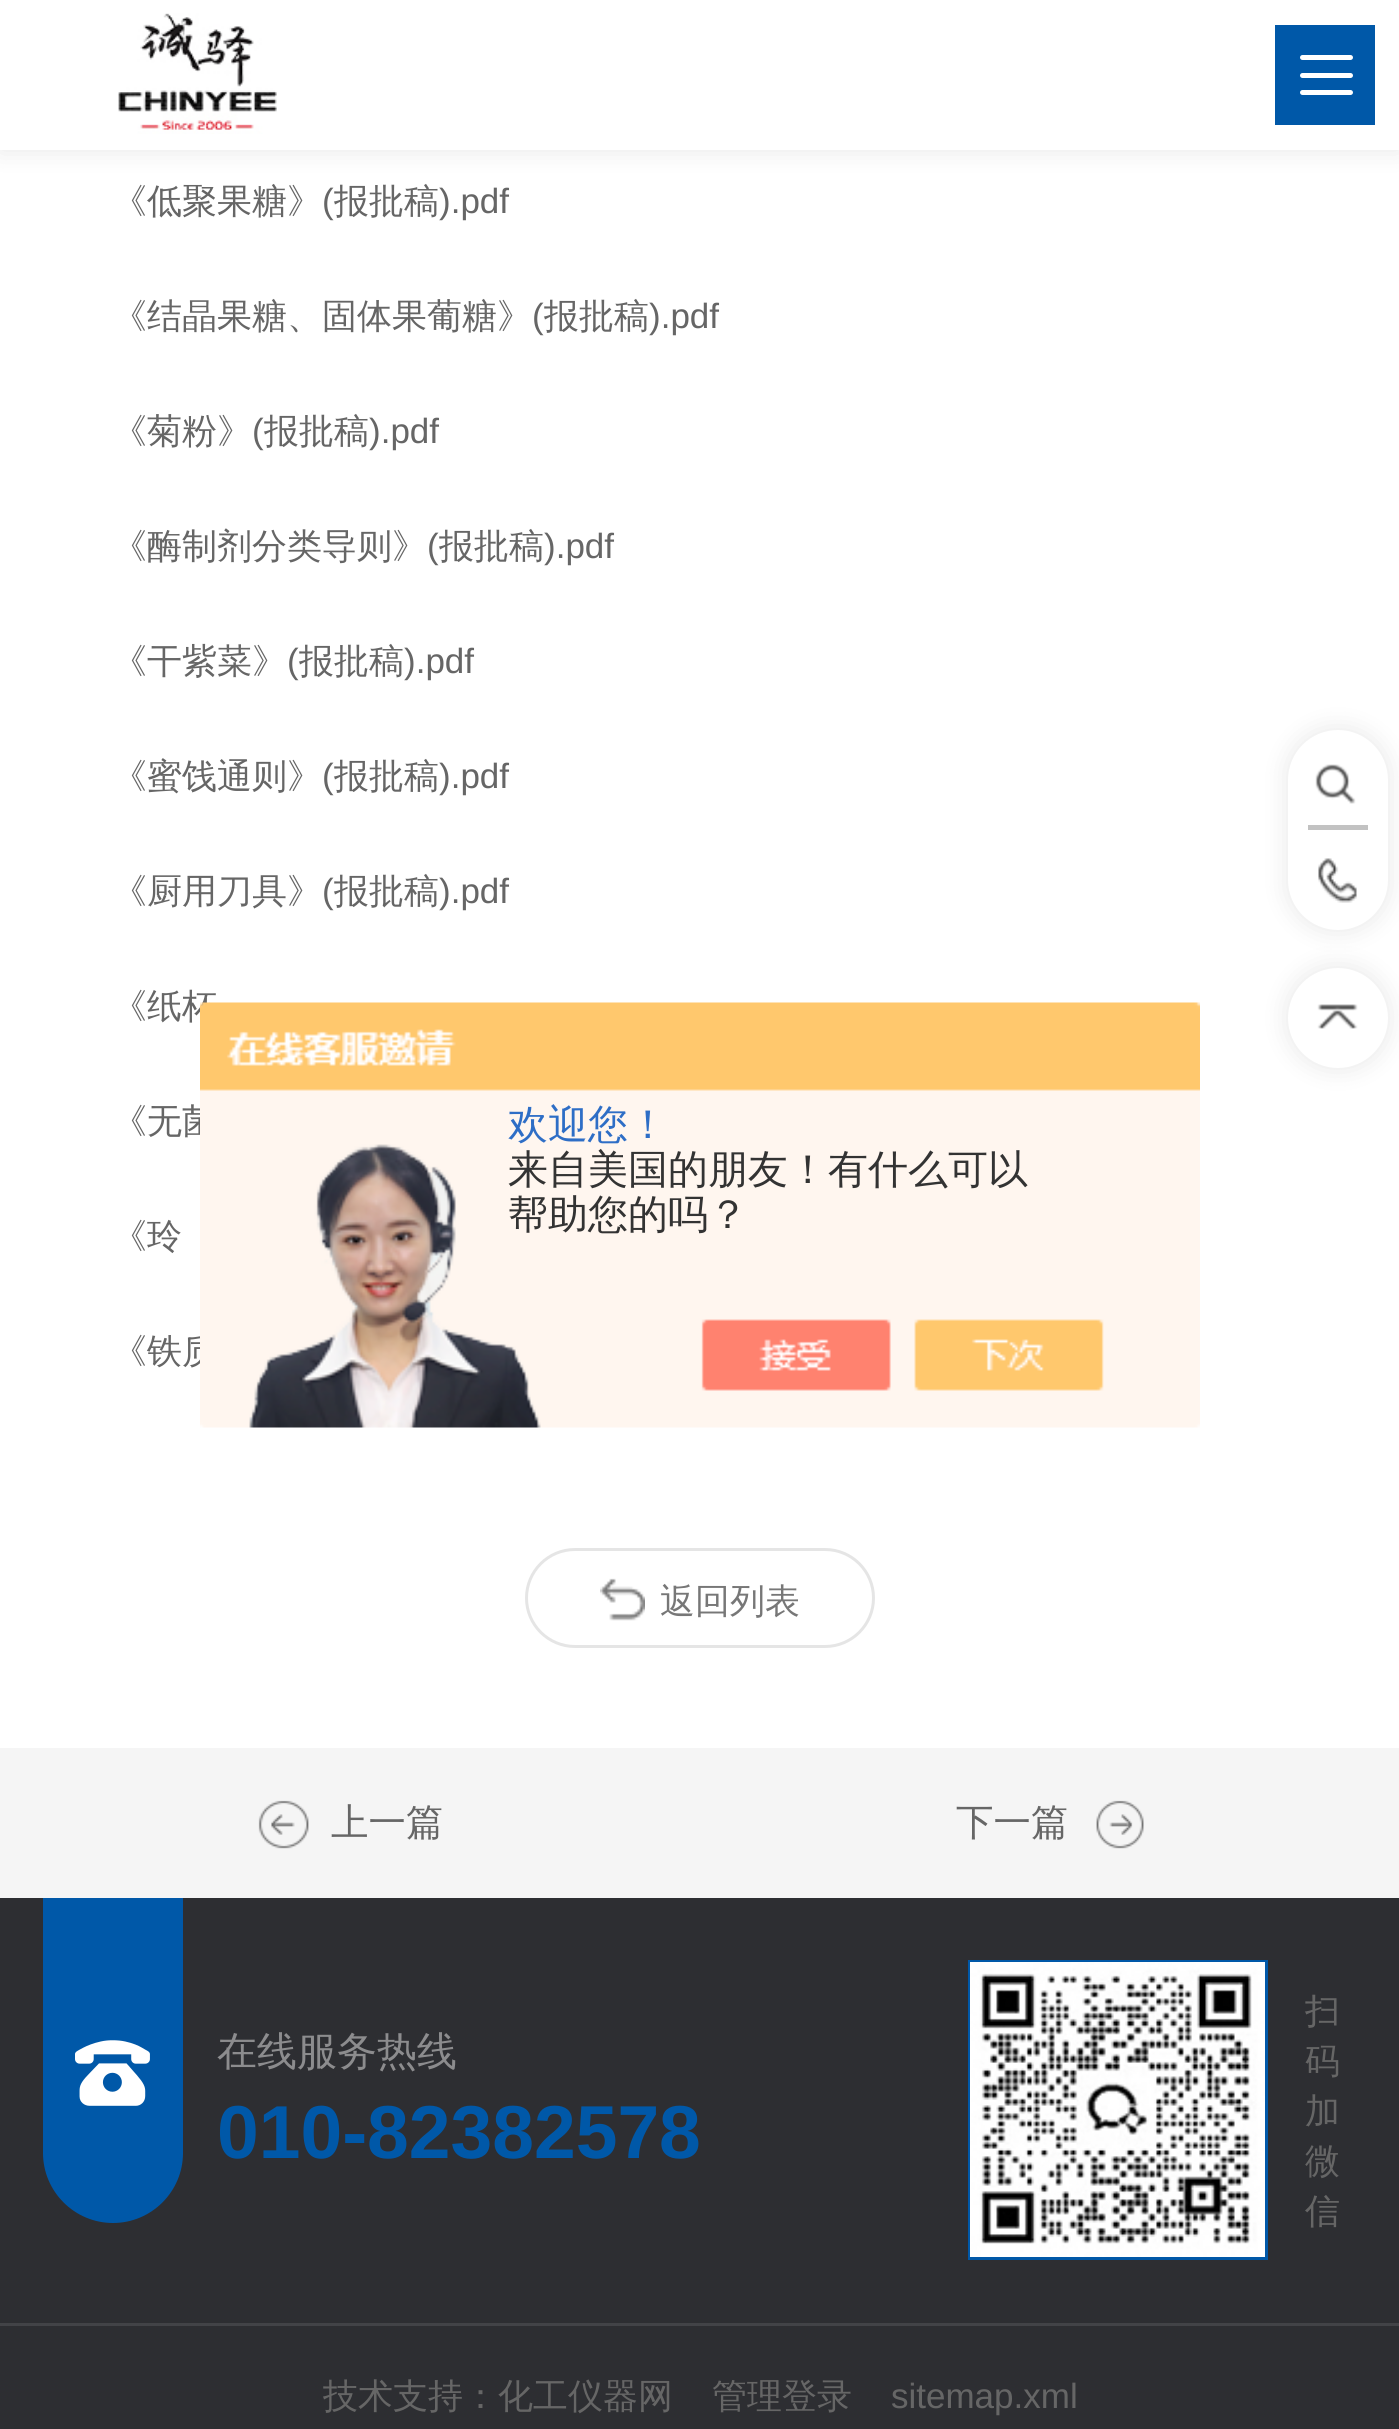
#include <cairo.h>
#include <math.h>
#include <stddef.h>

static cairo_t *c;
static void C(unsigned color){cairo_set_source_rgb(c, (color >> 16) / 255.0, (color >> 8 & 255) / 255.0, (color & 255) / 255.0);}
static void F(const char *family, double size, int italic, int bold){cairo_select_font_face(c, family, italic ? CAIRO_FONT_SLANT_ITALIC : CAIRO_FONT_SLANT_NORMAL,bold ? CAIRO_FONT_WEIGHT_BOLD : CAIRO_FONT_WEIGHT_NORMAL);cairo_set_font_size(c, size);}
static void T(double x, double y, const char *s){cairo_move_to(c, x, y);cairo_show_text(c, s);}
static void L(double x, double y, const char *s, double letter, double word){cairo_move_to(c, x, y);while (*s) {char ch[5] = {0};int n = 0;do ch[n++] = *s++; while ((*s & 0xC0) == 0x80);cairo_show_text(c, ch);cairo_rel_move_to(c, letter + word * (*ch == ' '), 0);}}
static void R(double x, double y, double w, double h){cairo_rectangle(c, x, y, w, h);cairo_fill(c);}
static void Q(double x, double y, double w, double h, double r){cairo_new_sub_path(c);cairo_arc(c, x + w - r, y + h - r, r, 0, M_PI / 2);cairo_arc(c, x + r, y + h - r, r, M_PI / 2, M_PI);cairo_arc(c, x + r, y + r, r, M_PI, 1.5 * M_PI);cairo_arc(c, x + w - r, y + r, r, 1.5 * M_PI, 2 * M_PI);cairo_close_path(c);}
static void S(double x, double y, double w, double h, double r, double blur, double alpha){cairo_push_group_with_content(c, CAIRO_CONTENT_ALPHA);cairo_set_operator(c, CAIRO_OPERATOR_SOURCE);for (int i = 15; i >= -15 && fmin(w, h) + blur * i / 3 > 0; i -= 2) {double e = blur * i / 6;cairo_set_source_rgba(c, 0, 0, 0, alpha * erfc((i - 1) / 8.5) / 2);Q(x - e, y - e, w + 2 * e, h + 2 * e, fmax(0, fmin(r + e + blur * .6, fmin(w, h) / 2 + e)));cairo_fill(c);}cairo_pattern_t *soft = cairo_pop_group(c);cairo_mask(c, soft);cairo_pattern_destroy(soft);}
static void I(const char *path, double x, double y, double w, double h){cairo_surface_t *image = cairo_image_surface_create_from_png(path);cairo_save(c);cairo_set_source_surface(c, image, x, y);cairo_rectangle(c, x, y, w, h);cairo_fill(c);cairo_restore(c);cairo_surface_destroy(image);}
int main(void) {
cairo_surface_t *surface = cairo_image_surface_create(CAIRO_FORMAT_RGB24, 1399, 2429);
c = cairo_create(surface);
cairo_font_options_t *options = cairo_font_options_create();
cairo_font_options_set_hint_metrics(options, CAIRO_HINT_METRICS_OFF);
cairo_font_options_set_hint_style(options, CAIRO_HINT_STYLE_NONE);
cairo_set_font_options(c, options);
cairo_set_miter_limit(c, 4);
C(0xffffff);
cairo_paint(c);
C(0x000000);
S(0,0,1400,150,0,12.5,.1);
C(0xffffff);
R(0,0,1399,150);
I("1.png",118,13,159,121);
C(0x0058a8);
R(1275,25,100,100);
C(0xffffff);
Q(1300,55,53,5,2.5);
cairo_fill(c);
Q(1300,73,53,5,2.5);
cairo_fill(c);
Q(1300,90,53,5,2.5);
cairo_fill(c);
F("WenQuanYi Zen Hei Medium",35,0,0);
C(0x666666);
T(112,213,"《低聚果糖》");
F("Liberation Sans",35,0,0);
T(322,213,"(");
F("WenQuanYi Zen Hei Medium",35,0,0);
T(334,213,"报批稿");
F("Liberation Sans",35,0,0);
T(439,213,").pdf");
F("WenQuanYi Zen Hei Medium",35,0,0);
T(112,328,"《结晶果糖、固体果葡糖》");
F("Liberation Sans",35,0,0);
T(532,328,"(");
F("WenQuanYi Zen Hei Medium",35,0,0);
T(544,328,"报批稿");
F("Liberation Sans",35,0,0);
T(649,328,").pdf");
F("WenQuanYi Zen Hei Medium",35,0,0);
T(112,443,"《菊粉》");
F("Liberation Sans",35,0,0);
T(252,443,"(");
F("WenQuanYi Zen Hei Medium",35,0,0);
T(264,443,"报批稿");
F("Liberation Sans",35,0,0);
T(369,443,").pdf");
F("WenQuanYi Zen Hei Medium",35,0,0);
T(112,558,"《酶制剂分类导则》");
F("Liberation Sans",35,0,0);
T(427,558,"(");
F("WenQuanYi Zen Hei Medium",35,0,0);
T(439,558,"报批稿");
F("Liberation Sans",35,0,0);
T(544,558,").pdf");
F("WenQuanYi Zen Hei Medium",35,0,0);
T(112,673,"《干紫菜》");
F("Liberation Sans",35,0,0);
T(287,673,"(");
F("WenQuanYi Zen Hei Medium",35,0,0);
T(299,673,"报批稿");
F("Liberation Sans",35,0,0);
T(404,673,").pdf");
F("WenQuanYi Zen Hei Medium",35,0,0);
T(112,788,"《蜜饯通则》");
F("Liberation Sans",35,0,0);
T(322,788,"(");
F("WenQuanYi Zen Hei Medium",35,0,0);
T(334,788,"报批稿");
F("Liberation Sans",35,0,0);
T(439,788,").pdf");
F("WenQuanYi Zen Hei Medium",35,0,0);
T(112,903,"《厨用刀具》");
F("Liberation Sans",35,0,0);
T(322,903,"(");
F("WenQuanYi Zen Hei Medium",35,0,0);
T(334,903,"报批稿");
F("Liberation Sans",35,0,0);
T(439,903,").pdf");
F("WenQuanYi Zen Hei Medium",35,0,0);
T(112,1018,"《纸杯");
T(112,1133,"《无菌");
T(112,1248,"《玲");
T(112,1363,"《铁质");
Q(526.5,1549.5,347,97,48.5);
C(0xe5e5e5);
cairo_set_line_width(c,3);
cairo_stroke(c);
I("2.png",600,1578,45,43);
C(0x777777);
T(660,1613,"返回列表");
C(0xf5f5f5);
R(0,1748,1399,150);
I("3.png",258,1800,51,49);
F("WenQuanYi Zen Hei Medium",37.5,0,0);
C(0x666666);
T(331,1835,"上一篇");
T(956,1835,"下一篇");
I("4.png",1096,1800,48,49);
C(0x000000);
S(1288,730,100,200,50,12.5,.1);
C(0xffffff);
Q(1288,730,100,200,50);
cairo_fill(c);
I("5.png",1315,764,41,40);
C(0xc2c2c2);
R(1308,825,60,5);
I("6.png",1318,858,39,45);
C(0x000000);
S(1288,968,100,100,50,12.5,.1);
C(0xffffff);
cairo_arc(c,1338,1018,50,0,2 * M_PI);
cairo_fill(c);
I("7.png",1317,1004,41,25);
I("8.png",200,1002,1000,426);
F("WenQuanYi Zen Hei Medium",40,0,0);
C(0x2e6ec6);
T(508,1138,"欢迎您！");
C(0x333333);
T(508,1183,"来自美国的朋友！有什么可以");
T(508,1228,"帮助您的吗？");
C(0x2d2e32);
R(0,1898,1399,531);
C(0x0058a8);
cairo_new_path(c);
cairo_move_to(c,43,1898);
cairo_line_to(c,183,1898);
cairo_line_to(c,183,2153);
cairo_curve_to(c,183,2191.5,151.5,2223,113,2223);
cairo_curve_to(c,74.5,2223,43,2191.5,43,2153);
cairo_close_path(c);
cairo_fill(c);
I("9.png",75,2040,75,66);
C(0x8c8c8e);
T(217,2065,"在线服务热线");
F("Liberation Sans",75,0,1);
C(0x0058a8);
T(217,2158,"010-82382578");
cairo_rectangle(c,969.5,1961.5,297,297);
cairo_stroke(c);
I("10.png",970,1962,295,295);
F("WenQuanYi Zen Hei Medium",35,0,0);
C(0x666666);
L(1305,2023,"扫",12,0);
L(1305,2073,"码",12,0);
L(1305,2123,"加",12,0);
L(1305,2173,"微",12,0);
L(1305,2223,"信",12,0);
C(0x424347);
R(0,2323,1399,3);
C(0x666666);
T(323,2408,"技术支持：化工仪器网");
T(712,2408,"管理登录");
F("Liberation Sans",35,0,0);
T(891,2408,"sitemap.xml");
cairo_surface_write_to_png(surface, "o.png");
cairo_font_options_destroy(options);
cairo_destroy(c);
cairo_surface_destroy(surface);
return 0;
}
